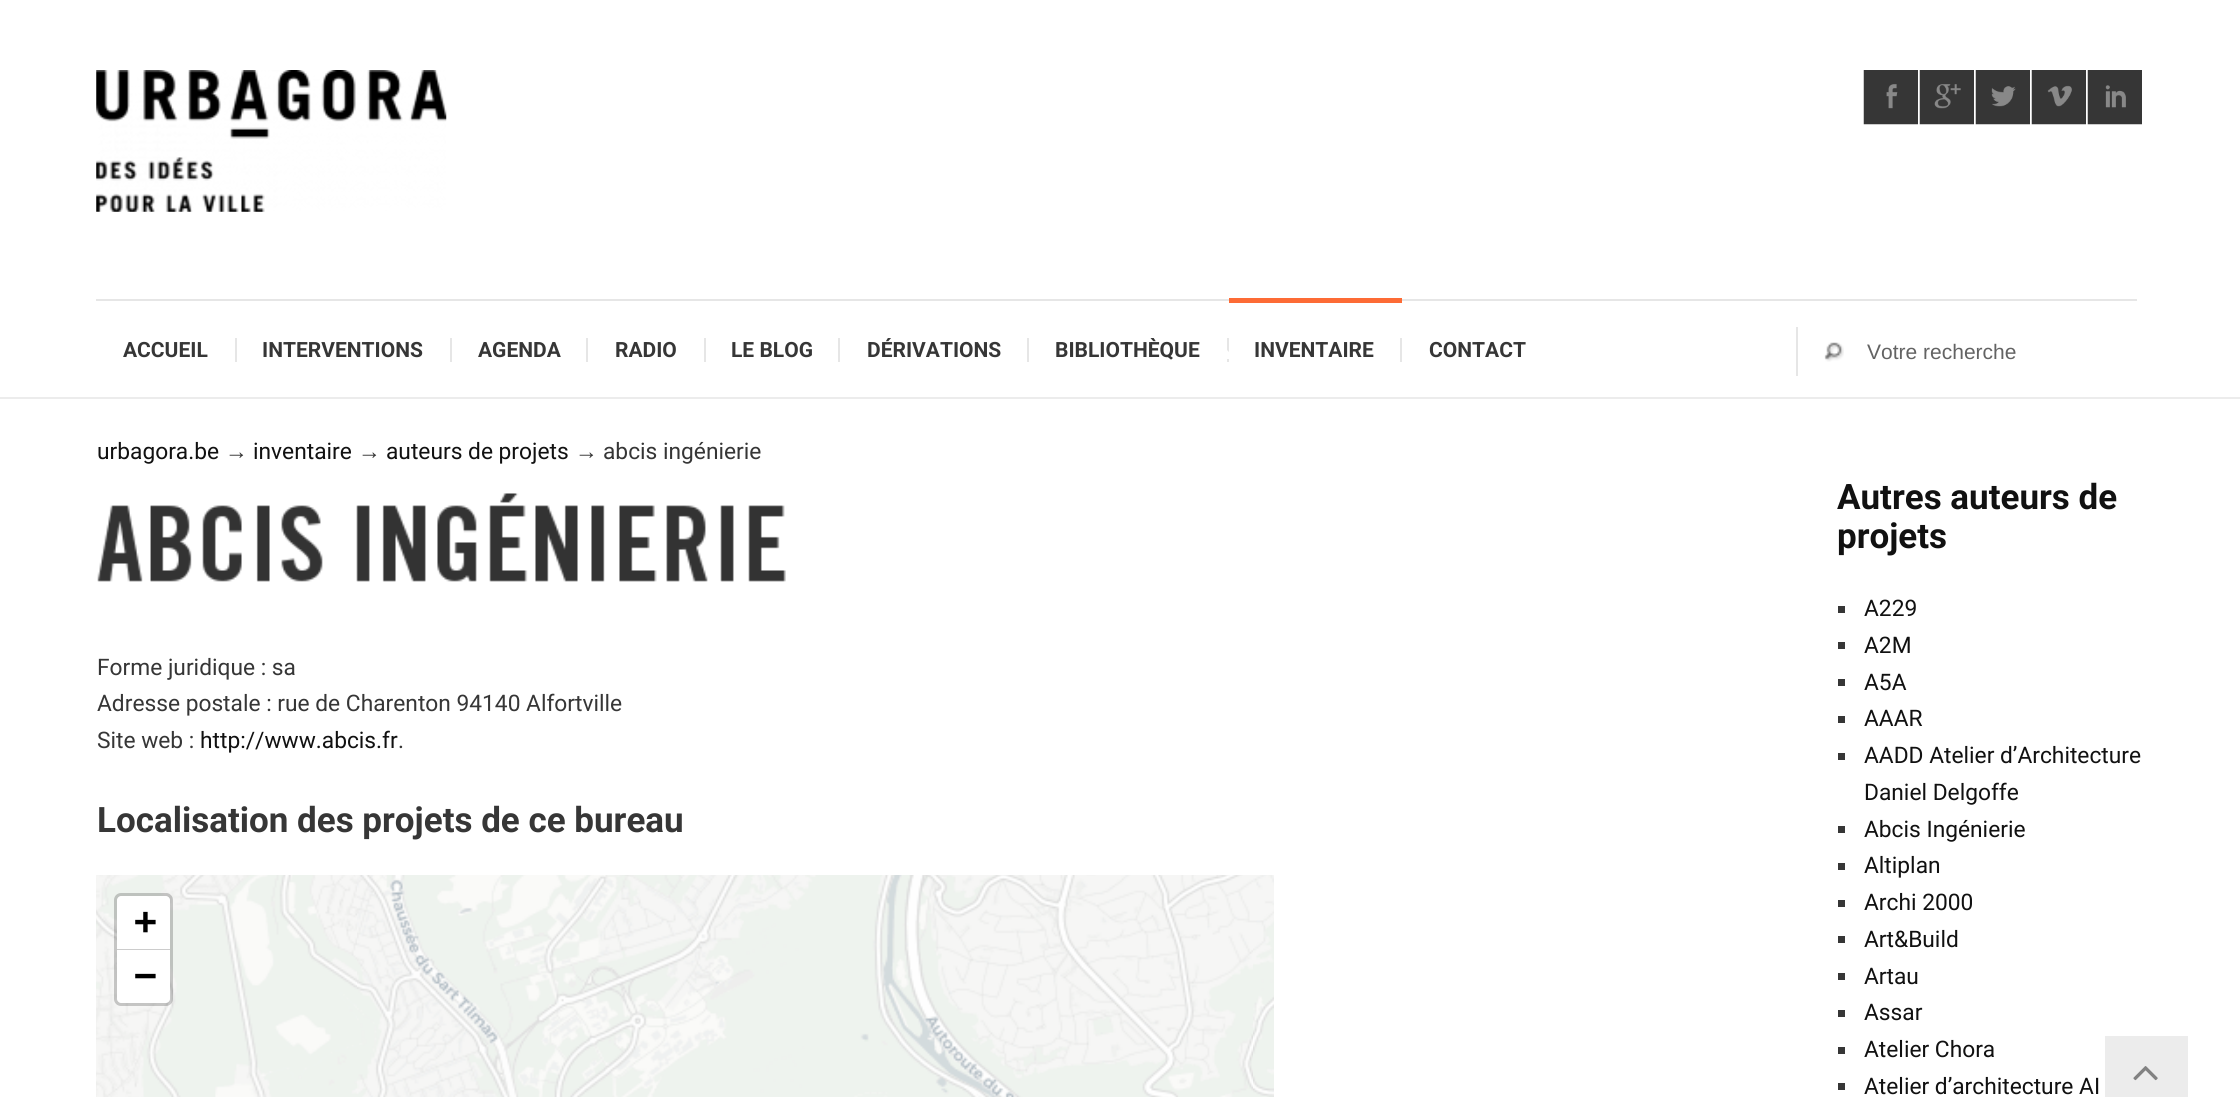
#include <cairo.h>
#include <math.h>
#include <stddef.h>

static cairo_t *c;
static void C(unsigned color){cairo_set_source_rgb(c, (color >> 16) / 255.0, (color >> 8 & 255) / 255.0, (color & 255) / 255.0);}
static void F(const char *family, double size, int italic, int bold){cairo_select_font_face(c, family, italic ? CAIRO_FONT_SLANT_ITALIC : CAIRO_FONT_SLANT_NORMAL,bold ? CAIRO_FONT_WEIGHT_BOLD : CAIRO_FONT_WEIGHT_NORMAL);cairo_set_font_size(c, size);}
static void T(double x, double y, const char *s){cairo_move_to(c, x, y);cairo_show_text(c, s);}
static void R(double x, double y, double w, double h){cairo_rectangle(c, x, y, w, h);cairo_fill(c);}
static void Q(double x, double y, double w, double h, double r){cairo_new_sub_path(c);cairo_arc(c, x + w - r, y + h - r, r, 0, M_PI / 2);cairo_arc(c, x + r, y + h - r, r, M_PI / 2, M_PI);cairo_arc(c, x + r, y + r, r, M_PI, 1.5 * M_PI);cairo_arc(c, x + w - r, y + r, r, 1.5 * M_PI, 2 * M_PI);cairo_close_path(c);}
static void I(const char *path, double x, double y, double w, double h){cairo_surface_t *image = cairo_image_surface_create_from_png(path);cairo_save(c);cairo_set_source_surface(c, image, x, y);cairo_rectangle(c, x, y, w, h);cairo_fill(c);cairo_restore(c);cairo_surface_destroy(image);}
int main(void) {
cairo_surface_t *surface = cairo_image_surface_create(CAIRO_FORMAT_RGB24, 2240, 1097);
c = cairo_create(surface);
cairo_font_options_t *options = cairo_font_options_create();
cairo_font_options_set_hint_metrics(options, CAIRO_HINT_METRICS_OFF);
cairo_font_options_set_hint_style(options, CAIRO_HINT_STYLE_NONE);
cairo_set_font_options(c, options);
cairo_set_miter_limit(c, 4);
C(0xffffff);
cairo_paint(c);
C(0xececec);
R(0,397,2240,2);
I("1.png",96,70,351,142);
I("2.png",1863,70,55,55);
I("3.png",1919,70,55,55);
I("4.png",1975,70,55,55);
I("5.png",2031,70,55,55);
I("6.png",2087,70,55,55);
C(0xe6e6e6);
R(96,299,2041,2);
R(235,338,2,24);
F("Roboto",21,0,1);
C(0x363636);
T(123,357,"ACCUEIL");
C(0xe6e6e6);
R(450,338,2,24);
C(0x363636);
T(262,357,"INTERVENTIONS");
C(0xe6e6e6);
R(586,338,2,24);
C(0x363636);
T(478,357,"AGENDA");
C(0xe6e6e6);
R(704,338,2,24);
C(0x363636);
T(615,357,"RADIO");
C(0xe6e6e6);
R(838,338,2,24);
C(0x363636);
T(731,357,"LE BLOG");
C(0xe6e6e6);
R(1027,338,2,24);
C(0x363636);
T(867,357,"DÉRIVATIONS");
C(0xe6e6e6);
R(1227,338,2,24);
C(0x363636);
T(1055,357,"BIBLIOTHÈQUE");
C(0xfd6b35);
R(1229,298,173,5);
C(0xe6e6e6);
R(1400,338,2,24);
C(0xffffff);
cairo_new_path(c);
cairo_move_to(c,1235.5,359);
cairo_line_to(c,1227,359);
cairo_line_to(c,1227,350);
cairo_close_path(c);
cairo_fill(c);
C(0x363636);
T(1254,357,"INVENTAIRE");
T(1429,357,"CONTACT");
C(0xe6e6e6);
R(1796,327,2,49);
I("7.png",1824,342,20,20);
F("Liberation Sans",21,0,0);
C(0x636363);
T(1867,359,"Votre recherche");
F("Roboto",22.75,0,0);
C(0x111111);
T(97,459,"urbagora.be");
F("Liberation Sans",22.75,0,0);
C(0x363636);
T(225,459,"→");
F("Roboto",22.75,0,0);
C(0x111111);
T(253,459,"inventaire");
F("Liberation Sans",22.75,0,0);
C(0x363636);
T(358,459,"→");
F("Roboto",22.75,0,0);
C(0x111111);
T(386,459,"auteurs de projets");
F("Liberation Sans",22.75,0,0);
C(0x363636);
T(575,459,"→");
F("Roboto",22.75,0,0);
T(603,459,"abcis ingénierie");
I("8.png",97,493,689,89);
T(97,675,"Forme juridique : sa");
T(97,711,"Adresse postale : rue de Charenton 94140 Alfortville");
T(97,748,"Site web :");
C(0x111111);
T(200,748,"http://www.abcis.fr");
C(0x363636);
T(398,748,".");
F("Roboto",35,0,1);
T(97,832,"Localisation des projets de ce bureau");
I("9.png",96,875,261,222);
I("10.png",357,875,448,222);
I("11.png",805,875,448,222);
I("12.png",1253,875,21,222);
Q(116,895,55,109,5);
cairo_set_source_rgba(c,0,0,0,0.2);
cairo_set_line_width(c,4);
cairo_stroke(c);
C(0xffffff);
cairo_new_path(c);
cairo_move_to(c,121,896);
cairo_line_to(c,166,896);
cairo_curve_to(c,168,896,170,898,170,900);
cairo_line_to(c,170,950);
cairo_line_to(c,117,950);
cairo_line_to(c,117,900);
cairo_curve_to(c,117,898,119,896,121,896);
cairo_close_path(c);
cairo_fill(c);
C(0xcccccc);
R(117,949,53,1);
F("DejaVu Sans Mono",38,0,1);
C(0x000000);
T(134,934,"+");
C(0xffffff);
cairo_new_path(c);
cairo_move_to(c,117,950);
cairo_line_to(c,170,950);
cairo_line_to(c,170,999);
cairo_curve_to(c,170,1001,168,1003,166,1003);
cairo_line_to(c,121,1003);
cairo_curve_to(c,119,1003,117,1001,117,999);
cairo_close_path(c);
cairo_fill(c);
C(0x000000);
T(134,988,"−");
F("Roboto",35,0,1);
C(0x111111);
T(1837,509,"Autres auteurs de");
T(1837,548,"projets");
C(0x363636);
R(1838,606,7,7);
F("Roboto",22.75,0,0);
C(0x111111);
T(1864,616,"A229");
C(0x363636);
R(1838,642,7,7);
C(0x111111);
T(1864,653,"A2M");
C(0x363636);
R(1838,679,7,7);
C(0x111111);
T(1864,690,"A5A");
C(0x363636);
R(1838,716,7,7);
C(0x111111);
T(1864,726,"AAAR");
C(0x363636);
R(1838,753,7,7);
C(0x111111);
T(1864,763,"AADD Atelier d’Architecture");
T(1864,800,"Daniel Delgoffe");
C(0x363636);
R(1838,826,7,7);
C(0x111111);
T(1864,837,"Abcis Ingénierie");
C(0x363636);
R(1838,863,7,7);
C(0x111111);
T(1864,873,"Altiplan");
C(0x363636);
R(1838,900,7,7);
C(0x111111);
T(1864,910,"Archi 2000");
C(0x363636);
R(1838,936,7,7);
C(0x111111);
T(1864,947,"Art&Build");
C(0x363636);
R(1838,973,7,7);
C(0x111111);
T(1864,984,"Artau");
C(0x363636);
R(1838,1010,7,7);
C(0x111111);
T(1864,1020,"Assar");
C(0x363636);
R(1838,1047,7,7);
C(0x111111);
T(1864,1057,"Atelier Chora");
C(0x363636);
R(1838,1083,7,7);
C(0x111111);
T(1864,1094,"Atelier d’architecture AI");
C(0xececec);
R(2105,1036,83,61);
I("13.png",2133,1066,25,15);
cairo_surface_write_to_png(surface, "o.png");
cairo_font_options_destroy(options);
cairo_destroy(c);
cairo_surface_destroy(surface);
return 0;
}
